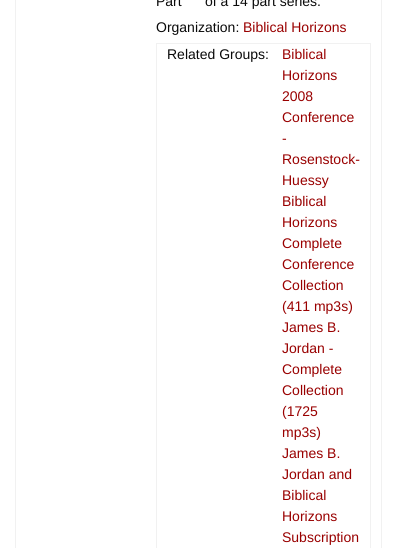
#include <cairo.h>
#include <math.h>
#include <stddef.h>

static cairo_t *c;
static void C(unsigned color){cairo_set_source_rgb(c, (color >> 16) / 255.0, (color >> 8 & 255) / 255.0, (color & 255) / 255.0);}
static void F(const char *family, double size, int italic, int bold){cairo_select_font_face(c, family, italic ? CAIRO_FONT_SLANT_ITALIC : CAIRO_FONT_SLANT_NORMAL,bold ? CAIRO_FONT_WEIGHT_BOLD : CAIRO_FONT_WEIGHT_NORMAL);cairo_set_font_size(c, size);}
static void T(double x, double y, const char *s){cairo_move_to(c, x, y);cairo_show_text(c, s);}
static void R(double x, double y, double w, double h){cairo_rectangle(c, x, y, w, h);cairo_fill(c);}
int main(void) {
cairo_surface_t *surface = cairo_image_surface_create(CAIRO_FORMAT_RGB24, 395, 548);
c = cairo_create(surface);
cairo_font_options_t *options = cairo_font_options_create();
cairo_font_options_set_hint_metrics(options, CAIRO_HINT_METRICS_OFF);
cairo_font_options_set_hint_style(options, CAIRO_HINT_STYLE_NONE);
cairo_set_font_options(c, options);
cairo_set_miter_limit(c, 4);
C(0xffffff);
cairo_paint(c);
C(0xf1f1f1);
R(381,0,1,548);
R(15,0,1,548);
F("Liberation Sans",14,0,0);
C(0x0a0a0a);
T(156,6,"Part");
T(205,6,"of a 14 part series.");
T(156,32,"Organization:");
C(0x990000);
T(243,32,"Biblical Horizons");
C(0xf1f1f1);
R(156,43,215,1);
R(370,43,1,505);
R(156,43,1,505);
C(0x0a0a0a);
T(167,59,"Related Groups:");
C(0x990000);
T(282,59,"Biblical");
T(282,80,"Horizons");
T(282,101,"2008");
T(282,122,"Conference");
T(282,143,"-");
T(282,164,"Rosenstock-");
T(282,185,"Huessy");
T(282,206,"Biblical");
T(282,227,"Horizons");
T(282,248,"Complete");
T(282,269,"Conference");
T(282,290,"Collection");
T(282,311,"(411 mp3s)");
T(282,332,"James B.");
T(282,353,"Jordan -");
T(282,374,"Complete");
T(282,395,"Collection");
T(282,416,"(1725");
T(282,437,"mp3s)");
T(282,458,"James B.");
T(282,479,"Jordan and");
T(282,500,"Biblical");
T(282,521,"Horizons");
T(282,542,"Subscription");
cairo_surface_write_to_png(surface, "o.png");
cairo_font_options_destroy(options);
cairo_destroy(c);
cairo_surface_destroy(surface);
return 0;
}
